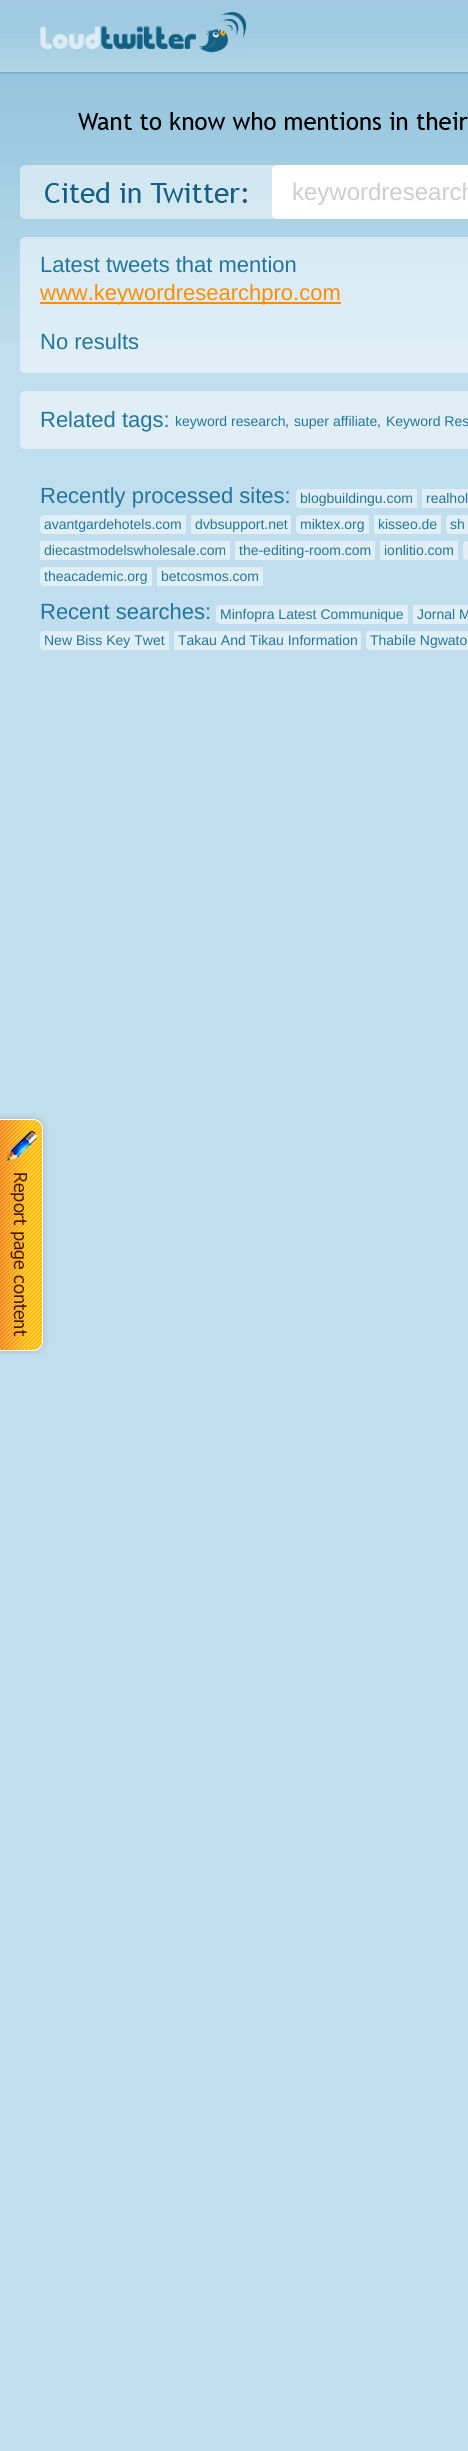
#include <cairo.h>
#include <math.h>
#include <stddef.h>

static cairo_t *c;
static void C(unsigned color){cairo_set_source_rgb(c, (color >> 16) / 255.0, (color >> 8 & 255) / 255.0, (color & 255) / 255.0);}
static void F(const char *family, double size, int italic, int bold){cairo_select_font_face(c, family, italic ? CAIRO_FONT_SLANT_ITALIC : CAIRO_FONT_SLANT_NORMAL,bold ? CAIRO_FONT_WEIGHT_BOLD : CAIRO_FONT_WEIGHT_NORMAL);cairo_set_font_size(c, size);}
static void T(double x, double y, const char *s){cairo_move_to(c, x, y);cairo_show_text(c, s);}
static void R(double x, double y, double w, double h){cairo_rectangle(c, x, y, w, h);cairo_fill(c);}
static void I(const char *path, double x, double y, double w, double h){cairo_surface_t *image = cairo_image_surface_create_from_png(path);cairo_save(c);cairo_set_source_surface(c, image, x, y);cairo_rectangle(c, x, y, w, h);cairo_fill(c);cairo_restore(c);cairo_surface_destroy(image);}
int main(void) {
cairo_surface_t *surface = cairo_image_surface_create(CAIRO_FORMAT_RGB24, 468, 2451);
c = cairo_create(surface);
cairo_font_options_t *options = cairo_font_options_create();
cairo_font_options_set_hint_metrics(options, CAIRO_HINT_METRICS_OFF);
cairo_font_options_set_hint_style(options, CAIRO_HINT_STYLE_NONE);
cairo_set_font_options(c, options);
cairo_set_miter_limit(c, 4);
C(0xc0deed);
cairo_paint(c);
I("1.png",0,0,468,341);
I("2.png",40,12,207,41);
I("3.png",78,112,390,18);
I("4.png",20,165,257,54);
I("5.png",45,182,202,21);
I("6.png",272,165,196,54);
F("Liberation Sans",24,0,0);
C(0xcdcdcd);
T(292,200,"keywordresearch");
I("7.png",20,237,448,5);
cairo_set_source_rgba(c,1,1,1,0.5);
R(20,242,448,126);
F("Liberation Sans",22,0,0);
C(0x23759d);
T(40,272,"Latest tweets that mention");
C(0xff8c00);
R(40,302,301,2);
T(40,300,"www.keywordresearchpro.com");
C(0x23759d);
T(40,349,"No results");
I("8.png",20,368,448,5);
I("9.png",20,391,448,5);
C(0xe0eff6);
R(20,396,448,48);
C(0x23759d);
T(40,427,"Related tags:");
F("Liberation Sans",14,0,0);
T(175,426,"keyword research");
C(0x454545);
T(285,426,",");
C(0x23759d);
T(294,426,"super affiliate");
C(0x454545);
T(377,426,",");
C(0x23759d);
T(386,426,"Keyword Res");
I("8.png",20,444,448,5);
F("Liberation Sans",22,0,0);
T(40,503,"Recently processed sites:");
I("10.png",296,489,121,19);
F("Liberation Sans",14,0,0);
T(300,503,"blogbuildingu.com");
C(0xe0eff6);
R(422,489,46,19);
C(0x23759d);
T(426,503,"realhol");
I("11.png",40,515,146,19);
T(44,529,"avantgardehotels.com");
C(0xe0eff6);
R(191,515,100,19);
C(0x23759d);
T(195,529,"dvbsupport.net");
I("12.png",296,515,73,19);
T(300,529,"miktex.org");
C(0xe0eff6);
R(374,515,67,19);
C(0x23759d);
T(378,529,"kisseo.de");
I("13.png",446,515,22,19);
T(450,529,"sh");
C(0xe0eff6);
R(40,541,190,19);
C(0x23759d);
T(44,555,"diecastmodelswholesale.com");
C(0xe0eff6);
R(235,541,140,19);
C(0x23759d);
T(239,555,"the-editing-room.com");
C(0xe0eff6);
R(380,541,78,19);
C(0x23759d);
T(384,555,"ionlitio.com");
I("14.png",463,541,5,19);
I("15.png",40,567,112,19);
T(44,581,"theacademic.org");
C(0xe0eff6);
R(157,567,106,19);
C(0x23759d);
T(161,581,"betcosmos.com");
F("Liberation Sans",22,0,0);
T(40,619,"Recent searches:");
I("16.png",216,605,192,19);
F("Liberation Sans",14,0,0);
T(220,619,"Minfopra Latest Communique");
C(0xe0eff6);
R(413,605,55,19);
C(0x23759d);
T(417,619,"Jornal M");
I("17.png",40,631,129,19);
T(44,645,"New Biss Key Twet");
C(0xe0eff6);
R(174,631,187,19);
C(0x23759d);
T(178,645,"Takau And Tikau Information");
I("18.png",366,631,102,19);
T(370,645,"Thabile Ngwato");
I("19.png",0,1113,49,241);
cairo_surface_write_to_png(surface, "o.png");
cairo_font_options_destroy(options);
cairo_destroy(c);
cairo_surface_destroy(surface);
return 0;
}
